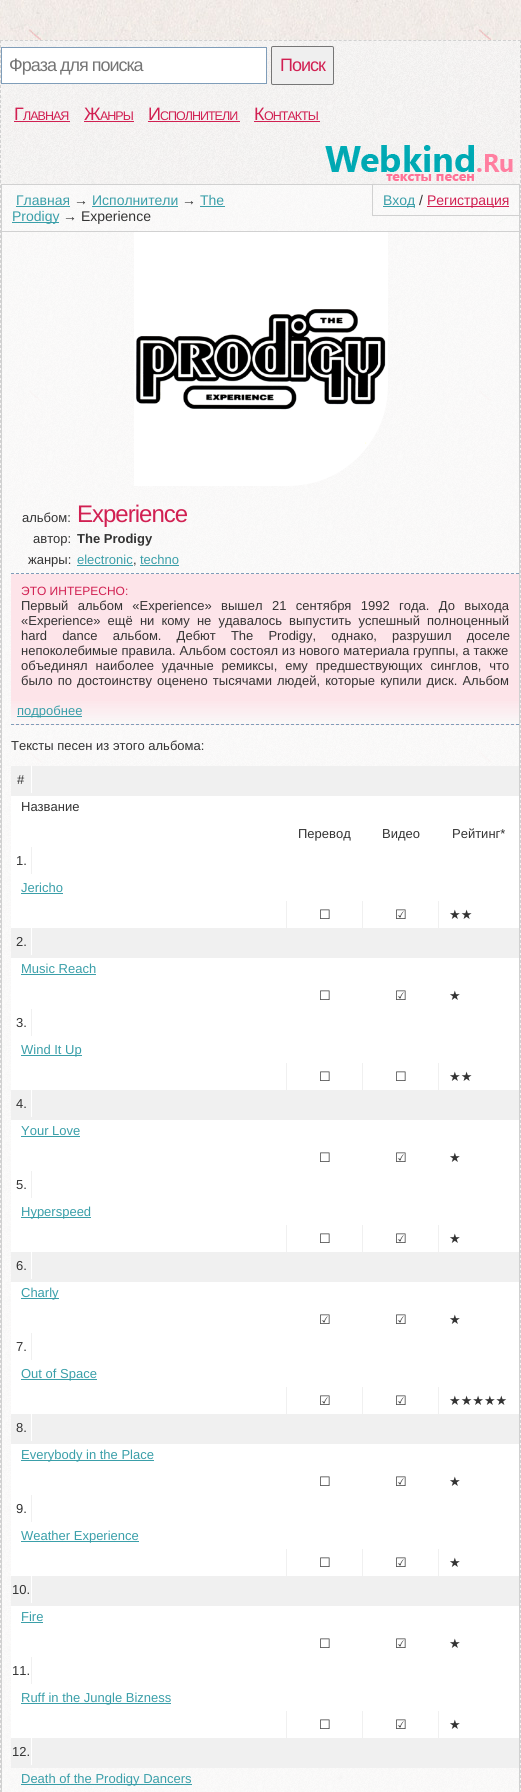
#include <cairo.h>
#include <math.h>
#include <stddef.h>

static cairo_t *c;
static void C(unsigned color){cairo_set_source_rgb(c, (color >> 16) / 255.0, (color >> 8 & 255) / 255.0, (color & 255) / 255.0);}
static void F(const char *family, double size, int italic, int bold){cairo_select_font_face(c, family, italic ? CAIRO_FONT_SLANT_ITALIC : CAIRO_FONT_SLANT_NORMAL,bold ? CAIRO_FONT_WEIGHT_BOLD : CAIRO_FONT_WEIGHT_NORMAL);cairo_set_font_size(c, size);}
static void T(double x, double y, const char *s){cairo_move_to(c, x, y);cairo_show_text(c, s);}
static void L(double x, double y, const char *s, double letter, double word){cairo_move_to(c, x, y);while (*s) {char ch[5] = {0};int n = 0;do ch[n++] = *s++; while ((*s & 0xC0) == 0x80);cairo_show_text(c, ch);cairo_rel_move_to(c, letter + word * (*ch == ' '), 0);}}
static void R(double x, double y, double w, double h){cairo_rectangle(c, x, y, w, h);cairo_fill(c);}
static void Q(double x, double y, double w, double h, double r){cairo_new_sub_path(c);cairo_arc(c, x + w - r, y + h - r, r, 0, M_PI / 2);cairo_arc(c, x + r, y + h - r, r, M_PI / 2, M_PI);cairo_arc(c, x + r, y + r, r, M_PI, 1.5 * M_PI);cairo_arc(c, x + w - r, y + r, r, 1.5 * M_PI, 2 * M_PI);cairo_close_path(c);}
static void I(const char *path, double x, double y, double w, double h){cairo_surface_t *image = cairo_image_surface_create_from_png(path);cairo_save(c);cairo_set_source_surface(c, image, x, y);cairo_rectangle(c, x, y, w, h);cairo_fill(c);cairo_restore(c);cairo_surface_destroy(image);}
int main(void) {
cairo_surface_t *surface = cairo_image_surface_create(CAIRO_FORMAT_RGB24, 521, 1792);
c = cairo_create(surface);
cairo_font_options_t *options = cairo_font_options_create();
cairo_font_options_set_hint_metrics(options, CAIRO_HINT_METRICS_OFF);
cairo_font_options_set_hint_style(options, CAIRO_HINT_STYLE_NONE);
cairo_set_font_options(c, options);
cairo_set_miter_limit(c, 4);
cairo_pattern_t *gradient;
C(0xffffff);
cairo_paint(c);
I("1.png",0,0,521,1792);
I("2.png",0,40,521,1752);
cairo_new_path(c);
cairo_move_to(c,0,40.5);
cairo_line_to(c,521,40.5);
C(0xd1d1d1);
cairo_set_line_width(c,1);
cairo_set_dash(c,(double[]){3,1.98},2,0);
cairo_stroke(c);
cairo_new_path(c);
cairo_move_to(c,520.5,40);
cairo_line_to(c,520.5,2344);
cairo_set_dash(c,(double[]){3,2},2,0);
cairo_stroke(c);
cairo_new_path(c);
cairo_move_to(c,.5,40);
cairo_line_to(c,.5,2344);
cairo_stroke(c);
C(0xffffff);
cairo_rectangle(c,1.5,47.5,265,36);
cairo_fill_preserve(c);
C(0x7f9db9);
cairo_set_dash(c,NULL,0,0);
cairo_stroke(c);
F("Liberation Sans",18,0,0);
C(0x757575);
L(9,71,"Фраза для поиска",-1,0);
C(0xefefef);
Q(271.5,46.5,62,38,1.5);
cairo_fill_preserve(c);
C(0x767676);
cairo_stroke(c);
C(0xd12052);
L(280,71,"Поиск",-1,0);
L(14,120,"Г",-1,0);
F("Liberation Sans",12.5,0,0);
L(23,120,"ЛАВНАЯ",-1,0);
R(14,121,56,1);
F("Liberation Sans",18,0,0);
L(84,120,"Ж",-1,0);
F("Liberation Sans",12.5,0,0);
L(100,120,"АНРЫ",-1,0);
R(84,121,50,1);
F("Liberation Sans",18,0,0);
L(148,120,"И",-1,0);
F("Liberation Sans",12.5,0,0);
L(160,120,"СПОЛНИТЕЛИ",-1,0);
R(148,121,92,1);
F("Liberation Sans",18,0,0);
L(254,120,"К",-1,0);
F("Liberation Sans",12.5,0,0);
L(264,120,"ОНТАКТЫ",-1,0);
R(254,121,66,1);
I("3.png",325,145,188,36);
cairo_set_source_rgba(c,1,1,1,0.53);
cairo_rectangle(c,1.5,184.5,518,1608);
cairo_fill_preserve(c);
C(0xd1d1d1);
cairo_stroke(c);
R(2,231,517,1);
F("Liberation Sans",14,0,0);
C(0x3a9fa9);
T(16,205,"Главная");
R(16,206,54,1);
C(0x333333);
T(74,205,"→");
C(0x3a9fa9);
T(92,205,"Исполнители");
R(92,206,86,1);
C(0x333333);
T(182,205,"→");
C(0x3a9fa9);
T(200,205,"The");
R(200,206,25,1);
R(12,222,47,1);
T(12,221,"Prodigy");
C(0x333333);
T(63,221,"→ Experience");
C(0xd1d1d1);
R(372,215,147,1);
R(372,185,1,31);
C(0x3a9fa9);
R(383,206,32,1);
T(383,205,"Вход");
C(0x333333);
T(419,205,"/");
C(0xd12052);
R(427,206,82,1);
T(427,205,"Регистрация");
I("4.png",134,232,254,254);
cairo_new_path(c);
cairo_move_to(c,11,573.5);
cairo_line_to(c,519,573.5);
C(0x7f9db9);
cairo_set_dash(c,(double[]){3,2},2,0);
cairo_stroke(c);
F("Liberation Sans",13,0,0);
C(0x333333);
T(22,522,"альбом:");
F("Liberation Sans",24,0,0);
C(0xd12052);
L(77,522,"Experience",-1,0);
F("Liberation Sans",13,0,0);
C(0x333333);
T(33,543,"автор:");
F("Liberation Sans",13,0,1);
T(77,543,"The Prodigy");
F("Liberation Sans",13,0,0);
T(28,564,"жанры:");
C(0x3a9fa9);
T(77,564,"electronic");
R(77,565,56,1);
C(0x333333);
T(133,564,",");
C(0x3a9fa9);
T(140,564,"techno");
R(140,565,39,1);
C(0xfde4e9);
R(11,574,508,151);
cairo_new_path(c);
cairo_move_to(c,11,724.5);
cairo_line_to(c,519,724.5);
C(0x7f9db9);
cairo_stroke(c);
F("Liberation Sans",12,0,0);
C(0xd12052);
T(21,595,"ЭТО ИНТЕРЕСНО:");
F("Liberation Sans",13,0,0);
C(0x333333);
L(21,610,"Первый альбом «Experience» вышел 21 сентября 1992 года. До выхода",0,5.75);
L(21,625,"«Experience» ещё ни кому не удавалось выпустить успешный полноценный",0,3.5);
L(21,640,"hard dance альбом. Дебют The Prodigy, однако, разрушил доселе",0,11.5);
L(21,655,"непоколебимые правила. Альбом состоял из нового материала группы, а также",0,.25);
L(21,670,"объединял наиболее удачные ремиксы, ему предшествующих синглов, что",0,4.25);
L(21,685,"было по достоинству оценено тысячами людей, которые купили диск. Альбом",0,1.5);
gradient = cairo_pattern_create_linear(271,697,271,724);
cairo_pattern_add_color_stop_rgba(gradient,0,0.992,0.894,0.914,.85);
cairo_pattern_add_color_stop_rgba(gradient,1,0.976,0.973,0.973,1);
cairo_set_source(c,gradient);
cairo_pattern_destroy(gradient);
R(11,701,508,23);
C(0x3a9fa9);
R(17,716,65,1);
T(17,715,"подробнее");
C(0x333333);
T(11,750,"Тексты песен из этого альбома:");
C(0xf0f0f0);
R(11,766,508,30);
C(0xffffff);
R(31,766,1,27);
C(0x333333);
T(17,784,"#");
C(0xffffff);
R(11,796,508,942);
C(0x333333);
T(21,811,"Название");
T(298,838,"Перевод");
T(382,838,"Видео");
T(452,838,"Рейтинг*");
C(0xf0f0f0);
R(31,847,1,27);
C(0x333333);
T(16,865,"1.");
C(0x3a9fa9);
T(21,892,"Jericho");
R(21,893,42,1);
C(0xf0f0f0);
R(362,901,1,27);
R(286,901,1,27);
F("DejaVu Sans",13,0,0);
C(0x333333);
T(319,919,"☐");
C(0xf0f0f0);
R(438,901,1,27);
C(0x333333);
T(395,919,"☑");
T(449,919,"★★");
C(0xf0f0f0);
R(11,928,508,30);
C(0xffffff);
R(31,928,1,27);
F("Liberation Sans",13,0,0);
C(0x333333);
T(16,946,"2.");
C(0x3a9fa9);
T(21,973,"Music Reach");
R(21,974,75,1);
F("DejaVu Sans",13,0,0);
C(0x333333);
T(319,1000,"☐");
T(395,1000,"☑");
T(449,1000,"★");
C(0xf0f0f0);
R(31,1009,1,27);
F("Liberation Sans",13,0,0);
C(0x333333);
T(16,1027,"3.");
C(0x3a9fa9);
R(21,1055,61,1);
T(21,1054,"Wind It Up");
C(0xf0f0f0);
R(362,1063,1,27);
R(286,1063,1,27);
F("DejaVu Sans",13,0,0);
C(0x333333);
T(319,1081,"☐");
C(0xf0f0f0);
R(438,1063,1,27);
C(0x333333);
T(395,1081,"☐");
T(449,1081,"★★");
C(0xf0f0f0);
R(11,1090,508,30);
C(0xffffff);
R(31,1090,1,27);
F("Liberation Sans",13,0,0);
C(0x333333);
T(16,1108,"4.");
C(0x3a9fa9);
T(21,1135,"Your Love");
R(21,1136,59,1);
F("DejaVu Sans",13,0,0);
C(0x333333);
T(319,1162,"☐");
T(395,1162,"☑");
T(449,1162,"★");
C(0xf0f0f0);
R(31,1171,1,27);
F("Liberation Sans",13,0,0);
C(0x333333);
T(16,1189,"5.");
C(0x3a9fa9);
R(21,1217,70,1);
T(21,1216,"Hyperspeed");
C(0xf0f0f0);
R(362,1225,1,27);
R(286,1225,1,27);
F("DejaVu Sans",13,0,0);
C(0x333333);
T(319,1243,"☐");
C(0xf0f0f0);
R(438,1225,1,27);
C(0x333333);
T(395,1243,"☑");
T(449,1243,"★");
C(0xf0f0f0);
R(11,1252,508,30);
C(0xffffff);
R(31,1252,1,27);
F("Liberation Sans",13,0,0);
C(0x333333);
T(16,1270,"6.");
C(0x3a9fa9);
R(21,1298,38,1);
T(21,1297,"Charly");
F("DejaVu Sans",13,0,0);
C(0x333333);
T(319,1324,"☑");
T(395,1324,"☑");
T(449,1324,"★");
C(0xf0f0f0);
R(31,1333,1,27);
F("Liberation Sans",13,0,0);
C(0x333333);
T(16,1351,"7.");
C(0x3a9fa9);
R(21,1379,76,1);
T(21,1378,"Out of Space");
C(0xf0f0f0);
R(362,1387,1,27);
R(286,1387,1,27);
F("DejaVu Sans",13,0,0);
C(0x333333);
T(319,1405,"☑");
C(0xf0f0f0);
R(438,1387,1,27);
C(0x333333);
T(395,1405,"☑");
T(449,1405,"★★★★★");
C(0xf0f0f0);
R(11,1414,508,30);
C(0xffffff);
R(31,1414,1,27);
F("Liberation Sans",13,0,0);
C(0x333333);
T(16,1432,"8.");
C(0x3a9fa9);
R(21,1460,133,1);
T(21,1459,"Everybody in the Place");
F("DejaVu Sans",13,0,0);
C(0x333333);
T(319,1486,"☐");
T(395,1486,"☑");
T(449,1486,"★");
C(0xf0f0f0);
R(31,1495,1,27);
F("Liberation Sans",13,0,0);
C(0x333333);
T(16,1513,"9.");
C(0x3a9fa9);
R(21,1541,118,1);
T(21,1540,"Weather Experience");
C(0xf0f0f0);
R(362,1549,1,27);
R(286,1549,1,27);
F("DejaVu Sans",13,0,0);
C(0x333333);
T(319,1567,"☐");
C(0xf0f0f0);
R(438,1549,1,27);
C(0x333333);
T(395,1567,"☑");
T(449,1567,"★");
C(0xf0f0f0);
R(11,1576,508,30);
C(0xffffff);
R(31,1576,1,27);
F("Liberation Sans",13,0,0);
C(0x333333);
T(12,1594,"10.");
C(0x3a9fa9);
T(21,1621,"Fire");
R(21,1622,22,1);
F("DejaVu Sans",13,0,0);
C(0x333333);
T(319,1648,"☐");
T(395,1648,"☑");
T(449,1648,"★");
C(0xf0f0f0);
R(31,1657,1,27);
F("Liberation Sans",13,0,0);
C(0x333333);
T(12,1675,"11.");
C(0x3a9fa9);
R(21,1703,150,1);
T(21,1702,"Ruff in the Jungle Bizness");
C(0xf0f0f0);
R(362,1711,1,27);
R(286,1711,1,27);
F("DejaVu Sans",13,0,0);
C(0x333333);
T(319,1729,"☐");
C(0xf0f0f0);
R(438,1711,1,27);
C(0x333333);
T(395,1729,"☑");
T(449,1729,"★");
C(0xf0f0f0);
R(11,1738,508,30);
C(0xffffff);
R(31,1738,1,27);
F("Liberation Sans",13,0,0);
C(0x333333);
T(12,1756,"12.");
C(0x3a9fa9);
R(21,1784,171,1);
T(21,1783,"Death of the Prodigy Dancers");
cairo_surface_write_to_png(surface, "o.png");
cairo_font_options_destroy(options);
cairo_destroy(c);
cairo_surface_destroy(surface);
return 0;
}
